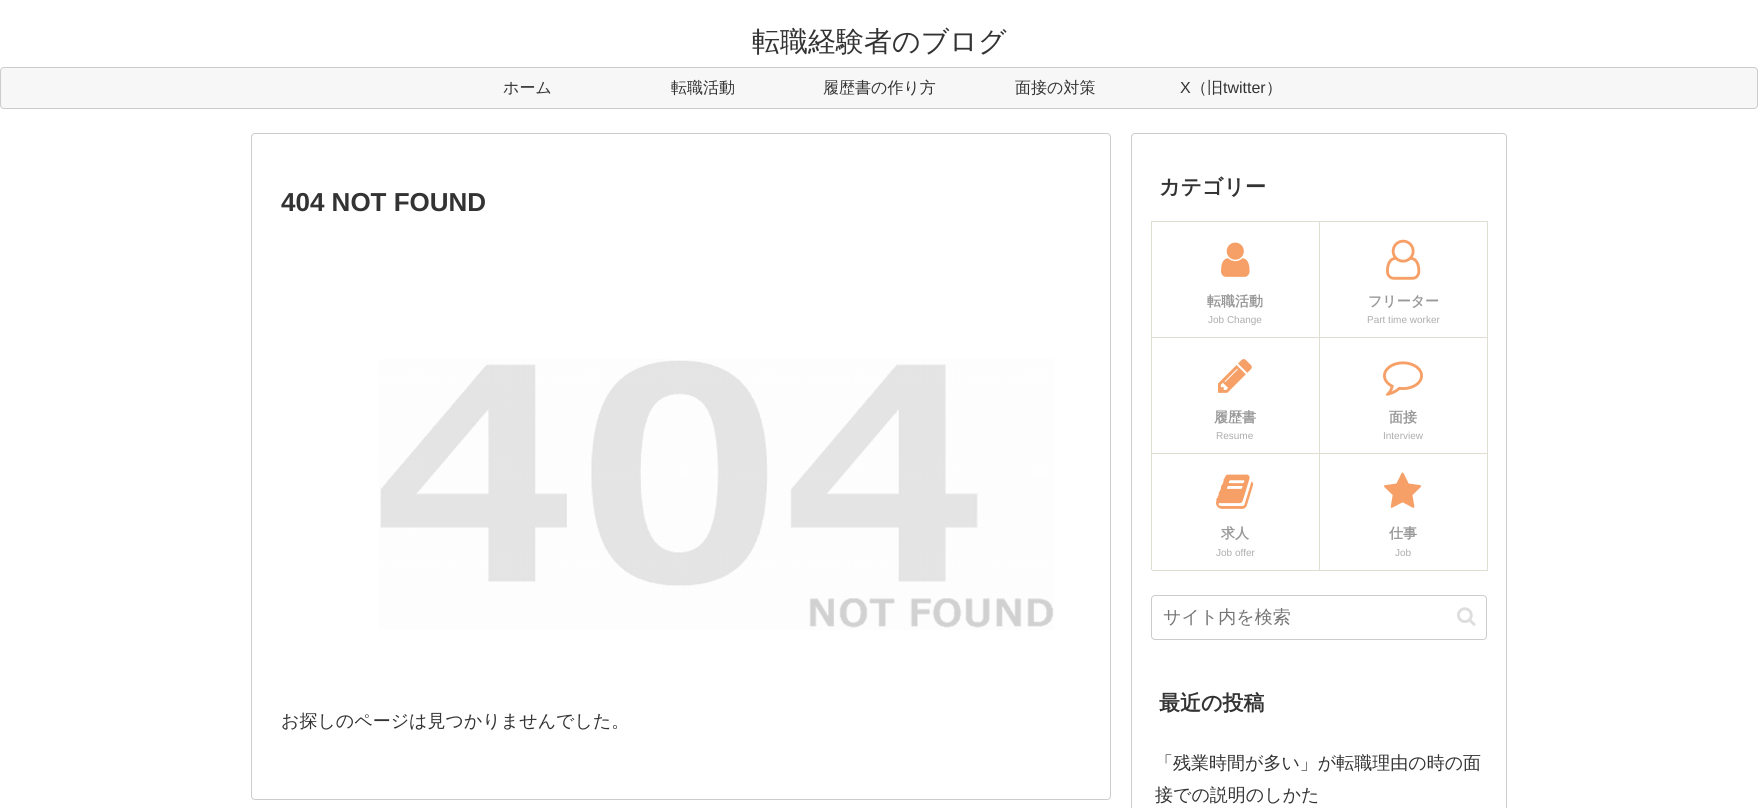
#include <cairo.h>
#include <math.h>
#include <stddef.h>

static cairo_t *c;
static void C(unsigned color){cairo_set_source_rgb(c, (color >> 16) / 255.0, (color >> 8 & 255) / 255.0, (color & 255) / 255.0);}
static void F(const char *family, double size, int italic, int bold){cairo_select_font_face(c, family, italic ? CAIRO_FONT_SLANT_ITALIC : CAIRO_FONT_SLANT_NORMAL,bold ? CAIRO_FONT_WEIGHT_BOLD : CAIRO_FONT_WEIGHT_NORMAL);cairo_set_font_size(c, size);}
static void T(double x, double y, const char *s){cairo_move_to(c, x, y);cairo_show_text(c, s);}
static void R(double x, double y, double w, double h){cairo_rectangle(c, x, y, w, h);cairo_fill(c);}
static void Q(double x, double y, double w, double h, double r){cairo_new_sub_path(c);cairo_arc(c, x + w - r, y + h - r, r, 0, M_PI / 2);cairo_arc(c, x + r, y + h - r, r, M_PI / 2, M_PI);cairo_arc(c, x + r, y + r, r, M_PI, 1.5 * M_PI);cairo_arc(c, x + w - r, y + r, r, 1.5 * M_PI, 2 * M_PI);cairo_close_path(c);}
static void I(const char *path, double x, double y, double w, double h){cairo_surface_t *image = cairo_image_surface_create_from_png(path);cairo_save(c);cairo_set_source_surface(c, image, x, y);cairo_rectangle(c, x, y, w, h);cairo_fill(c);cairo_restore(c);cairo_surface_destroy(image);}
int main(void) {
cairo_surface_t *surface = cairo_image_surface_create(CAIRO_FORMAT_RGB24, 1758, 808);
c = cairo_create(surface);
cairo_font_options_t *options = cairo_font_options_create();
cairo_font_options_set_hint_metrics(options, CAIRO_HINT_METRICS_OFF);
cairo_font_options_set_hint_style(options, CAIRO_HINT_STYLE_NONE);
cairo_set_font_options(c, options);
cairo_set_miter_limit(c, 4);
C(0xffffff);
cairo_paint(c);
F("WenQuanYi Zen Hei Medium",28,0,0);
C(0x333333);
T(752,51,"転職経験者のブログ");
C(0xf7f7f7);
Q(.5,67.5,1757,41,3.5);
cairo_fill_preserve(c);
C(0xcccccc);
cairo_set_line_width(c,1);
cairo_stroke(c);
F("WenQuanYi Zen Hei Medium",16,0,0);
C(0x333333);
T(503,93,"ホーム");
T(671,93,"転職活動");
T(823,93,"履歴書の作り方");
T(1015,93,"面接の対策");
F("Liberation Sans",16,0,0);
T(1180,93,"X");
F("WenQuanYi Zen Hei Medium",16,0,0);
T(1191,93,"（旧");
F("Liberation Sans",16,0,0);
T(1223,93,"twitter");
F("WenQuanYi Zen Hei Medium",16,0,0);
T(1266,93,"）");
Q(251.5,133.5,859,666,3.5);
C(0xcccccc);
cairo_stroke(c);
F("Liberation Sans",26,0,1);
C(0x333333);
T(281,211,"404 NOT FOUND");
I("1.png",379,359,675,271);
F("WenQuanYi Zen Hei Medium",18,0,0);
T(281,727,"お探しのページは見つかりませんでした。");
Q(1131.5,133.5,375,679,3.5);
C(0xcccccc);
cairo_stroke(c);
F("WenQuanYi Zen Hei",21,0,1);
C(0x333333);
T(1159,194,"カテゴリー");
cairo_save(c);
cairo_rectangle(c,1151,221,168,116);
cairo_clip(c);
C(0xe0ddd1);
cairo_set_fill_rule(c,CAIRO_FILL_RULE_EVEN_ODD);
cairo_new_path(c);
cairo_move_to(c,1052,122);
cairo_line_to(c,1418,122);
cairo_line_to(c,1418,436);
cairo_line_to(c,1052,436);
cairo_close_path(c);
cairo_move_to(c,1152,222);
cairo_line_to(c,1320,222);
cairo_line_to(c,1320,338);
cairo_line_to(c,1152,338);
cairo_close_path(c);
cairo_fill(c);
cairo_restore(c);
I("2.png",1221,242,29,35);
F("WenQuanYi Zen Hei",14,0,1);
C(0x999999);
T(1207,306,"転職活動");
F("Liberation Sans",10,0,0);
C(0xadadad);
T(1208,323,"Job Change");
C(0xe0ddd1);
R(1487,221,1,1);
cairo_new_path(c);
cairo_move_to(c,1320,337);
cairo_line_to(c,1320,338);
cairo_line_to(c,1488,338);
cairo_line_to(c,1488,222);
cairo_line_to(c,1487,222);
cairo_line_to(c,1487,337);
cairo_close_path(c);
cairo_fill(c);
cairo_save(c);
cairo_rectangle(c,1319,221,168,116);
cairo_clip(c);
cairo_set_fill_rule(c,CAIRO_FILL_RULE_EVEN_ODD);
cairo_new_path(c);
cairo_move_to(c,1220,122);
cairo_line_to(c,1586,122);
cairo_line_to(c,1586,436);
cairo_line_to(c,1220,436);
cairo_close_path(c);
cairo_move_to(c,1320,222);
cairo_line_to(c,1488,222);
cairo_line_to(c,1488,338);
cairo_line_to(c,1320,338);
cairo_close_path(c);
cairo_fill(c);
cairo_restore(c);
I("3.png",1386,239,35,41);
F("WenQuanYi Zen Hei",14,0,1);
C(0x999999);
T(1368,306,"フリーター");
F("Liberation Sans",10,0,0);
C(0xadadad);
T(1367,323,"Part time worker");
cairo_save(c);
cairo_rectangle(c,1151,337,168,116);
cairo_clip(c);
C(0xe0ddd1);
cairo_set_fill_rule(c,CAIRO_FILL_RULE_EVEN_ODD);
cairo_new_path(c);
cairo_move_to(c,1052,238);
cairo_line_to(c,1418,238);
cairo_line_to(c,1418,552);
cairo_line_to(c,1052,552);
cairo_close_path(c);
cairo_move_to(c,1152,338);
cairo_line_to(c,1320,338);
cairo_line_to(c,1320,454);
cairo_line_to(c,1152,454);
cairo_close_path(c);
cairo_fill(c);
cairo_restore(c);
I("4.png",1218,359,34,34);
F("WenQuanYi Zen Hei",14,0,1);
C(0x999999);
T(1214,422,"履歴書");
F("Liberation Sans",10,0,0);
C(0xadadad);
T(1216,439,"Resume");
C(0xe0ddd1);
cairo_new_path(c);
cairo_move_to(c,1320,453);
cairo_line_to(c,1320,454);
cairo_line_to(c,1488,454);
cairo_line_to(c,1488,338);
cairo_line_to(c,1487,338);
cairo_line_to(c,1487,453);
cairo_close_path(c);
cairo_fill(c);
cairo_save(c);
cairo_rectangle(c,1319,337,168,116);
cairo_clip(c);
cairo_set_fill_rule(c,CAIRO_FILL_RULE_EVEN_ODD);
cairo_new_path(c);
cairo_move_to(c,1220,238);
cairo_line_to(c,1586,238);
cairo_line_to(c,1586,552);
cairo_line_to(c,1220,552);
cairo_close_path(c);
cairo_move_to(c,1320,338);
cairo_line_to(c,1488,338);
cairo_line_to(c,1488,454);
cairo_line_to(c,1320,454);
cairo_close_path(c);
cairo_fill(c);
cairo_restore(c);
I("5.png",1383,361,40,35);
F("WenQuanYi Zen Hei",14,0,1);
C(0x999999);
T(1389,422,"面接");
F("Liberation Sans",10,0,0);
C(0xadadad);
T(1383,439,"Interview");
C(0xe0ddd1);
cairo_new_path(c);
cairo_move_to(c,1152,570);
cairo_line_to(c,1152,571);
cairo_line_to(c,1320,571);
cairo_line_to(c,1320,454);
cairo_line_to(c,1319,454);
cairo_line_to(c,1319,570);
cairo_close_path(c);
cairo_fill(c);
cairo_save(c);
cairo_rectangle(c,1151,453,168,117);
cairo_clip(c);
cairo_set_fill_rule(c,CAIRO_FILL_RULE_EVEN_ODD);
cairo_new_path(c);
cairo_move_to(c,1052,354);
cairo_line_to(c,1418,354);
cairo_line_to(c,1418,669);
cairo_line_to(c,1052,669);
cairo_close_path(c);
cairo_move_to(c,1152,454);
cairo_line_to(c,1320,454);
cairo_line_to(c,1320,571);
cairo_line_to(c,1152,571);
cairo_close_path(c);
cairo_fill(c);
cairo_restore(c);
I("6.png",1216,474,38,35);
F("WenQuanYi Zen Hei",14,0,1);
C(0x999999);
T(1221,538,"求人");
F("Liberation Sans",10,0,0);
C(0xadadad);
T(1216,556,"Job offer");
C(0xe0ddd1);
cairo_new_path(c);
cairo_move_to(c,1320,570);
cairo_line_to(c,1320,571);
cairo_line_to(c,1488,571);
cairo_line_to(c,1488,454);
cairo_line_to(c,1487,454);
cairo_line_to(c,1487,570);
cairo_close_path(c);
cairo_fill(c);
cairo_save(c);
cairo_rectangle(c,1319,453,168,117);
cairo_clip(c);
cairo_set_fill_rule(c,CAIRO_FILL_RULE_EVEN_ODD);
cairo_new_path(c);
cairo_move_to(c,1220,354);
cairo_line_to(c,1586,354);
cairo_line_to(c,1586,669);
cairo_line_to(c,1220,669);
cairo_close_path(c);
cairo_move_to(c,1320,454);
cairo_line_to(c,1488,454);
cairo_line_to(c,1488,571);
cairo_line_to(c,1320,571);
cairo_close_path(c);
cairo_fill(c);
cairo_restore(c);
I("7.png",1384,472,38,36);
F("WenQuanYi Zen Hei",14,0,1);
C(0x999999);
T(1389,538,"仕事");
F("Liberation Sans",10,0,0);
C(0xadadad);
T(1395,556,"Job");
Q(1151.5,595.5,335,44,3.5);
C(0xcccccc);
cairo_stroke(c);
F("WenQuanYi Zen Hei Medium",18,0,0);
C(0x757575);
T(1163,623,"サイト内を検索");
I("8.png",1457,607,19,19);
F("WenQuanYi Zen Hei",21,0,1);
C(0x333333);
T(1159,710,"最近の投稿");
F("WenQuanYi Zen Hei Medium",18,0,0);
T(1155,769,"「残業時間が多い」が転職理由の時の面");
T(1155,801,"接での説明のしかた");
cairo_surface_write_to_png(surface, "o.png");
cairo_font_options_destroy(options);
cairo_destroy(c);
cairo_surface_destroy(surface);
return 0;
}
